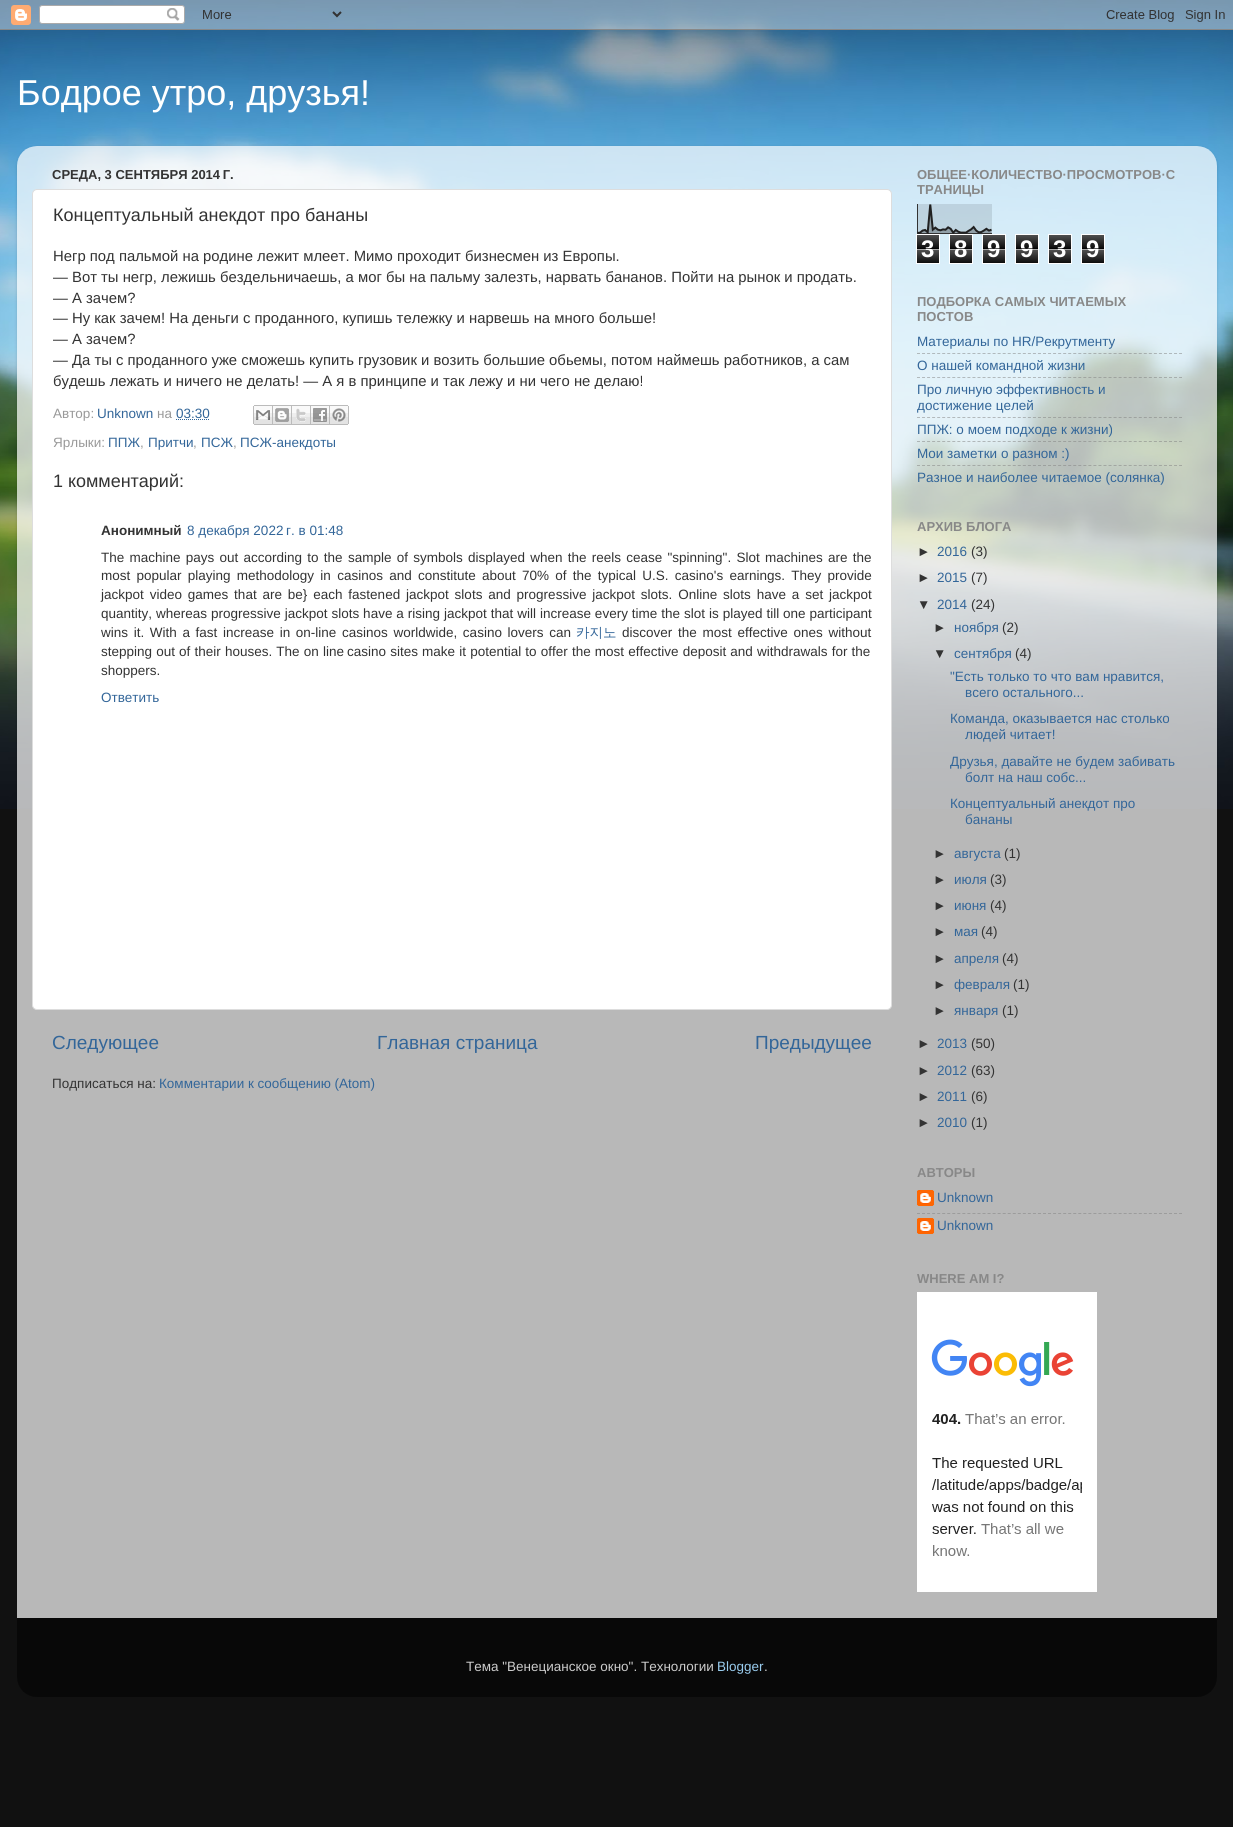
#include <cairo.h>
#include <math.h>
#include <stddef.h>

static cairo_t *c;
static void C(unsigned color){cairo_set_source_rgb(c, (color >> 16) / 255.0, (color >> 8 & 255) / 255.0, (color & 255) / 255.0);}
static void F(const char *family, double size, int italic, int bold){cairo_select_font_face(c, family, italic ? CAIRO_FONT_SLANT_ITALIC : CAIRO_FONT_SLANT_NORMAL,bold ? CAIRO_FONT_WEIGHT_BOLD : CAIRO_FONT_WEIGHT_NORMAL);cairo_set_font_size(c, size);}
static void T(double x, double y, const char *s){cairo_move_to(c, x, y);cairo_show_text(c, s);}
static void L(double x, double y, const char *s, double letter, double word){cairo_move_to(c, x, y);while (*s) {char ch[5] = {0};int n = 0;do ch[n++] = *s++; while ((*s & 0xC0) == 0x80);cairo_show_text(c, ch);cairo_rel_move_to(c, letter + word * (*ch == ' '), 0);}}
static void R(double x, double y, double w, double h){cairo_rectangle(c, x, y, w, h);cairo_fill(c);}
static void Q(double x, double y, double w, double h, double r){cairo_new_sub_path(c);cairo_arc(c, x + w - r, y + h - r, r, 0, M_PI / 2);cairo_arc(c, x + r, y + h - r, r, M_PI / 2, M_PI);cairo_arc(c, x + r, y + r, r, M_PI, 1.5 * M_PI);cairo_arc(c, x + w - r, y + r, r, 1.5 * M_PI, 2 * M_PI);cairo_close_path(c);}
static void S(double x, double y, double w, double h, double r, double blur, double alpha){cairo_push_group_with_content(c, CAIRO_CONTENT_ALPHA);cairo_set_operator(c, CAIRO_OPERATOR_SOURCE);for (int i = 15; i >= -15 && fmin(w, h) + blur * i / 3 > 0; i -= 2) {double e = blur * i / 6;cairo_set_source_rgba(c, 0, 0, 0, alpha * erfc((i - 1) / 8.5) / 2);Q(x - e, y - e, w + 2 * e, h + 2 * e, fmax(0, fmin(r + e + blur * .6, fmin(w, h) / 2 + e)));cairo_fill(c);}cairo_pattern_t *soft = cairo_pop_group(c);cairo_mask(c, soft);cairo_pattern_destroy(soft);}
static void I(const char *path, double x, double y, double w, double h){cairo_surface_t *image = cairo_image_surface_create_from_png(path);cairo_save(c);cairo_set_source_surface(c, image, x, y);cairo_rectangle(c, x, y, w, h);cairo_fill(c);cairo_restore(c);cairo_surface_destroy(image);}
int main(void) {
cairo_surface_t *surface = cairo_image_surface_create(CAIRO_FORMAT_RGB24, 1233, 1827);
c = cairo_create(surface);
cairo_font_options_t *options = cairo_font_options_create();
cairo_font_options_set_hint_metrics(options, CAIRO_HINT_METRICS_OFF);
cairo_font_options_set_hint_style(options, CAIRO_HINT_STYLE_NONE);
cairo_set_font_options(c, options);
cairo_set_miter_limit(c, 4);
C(0x111111);
cairo_paint(c);
I("1.png",0,0,1233,809);
I("2.png",0,0,1233,30);
F("Liberation Sans",36,0,0);
C(0xffffff);
T(17,105,"Бодрое утро, друзья!");
cairo_save(c);
cairo_set_fill_rule(c,CAIRO_FILL_RULE_EVEN_ODD);
cairo_new_path(c);
cairo_move_to(c,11,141);
cairo_line_to(c,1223,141);
cairo_line_to(c,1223,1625);
cairo_line_to(c,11,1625);
cairo_close_path(c);
cairo_move_to(c,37,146);
cairo_line_to(c,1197,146);
cairo_curve_to(c,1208,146,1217,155,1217,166);
cairo_line_to(c,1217,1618);
cairo_line_to(c,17,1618);
cairo_line_to(c,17,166);
cairo_curve_to(c,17,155,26,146,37,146);
cairo_close_path(c);
cairo_clip(c);
C(0x000000);
S(17,147,1200,1472,20,1.5,.15);
cairo_restore(c);
I("3.png",17,146,1200,1472);
F("Liberation Sans",13,0,1);
C(0x333333);
T(52,179,"СРЕДА, 3 СЕНТЯБРЯ 2014 Г.");
C(0xffffff);
Q(32.5,189.5,859,820,4.5);
cairo_fill_preserve(c);
C(0xdddddd);
cairo_set_line_width(c,1);
cairo_stroke(c);
F("Liberation Sans",18,0,0);
C(0x333333);
T(53,221,"Концептуальный анекдот про бананы");
F("Liberation Sans",14.85,0,0);
T(53,261,"Негр под пальмой на родине лежит млеет. Мимо проходит бизнесмен из Европы.");
T(53,282,"— Вот ты негр, лежишь бездельничаешь, а мог бы на пальму залезть, нарвать бананов. Пойти на рынок и продать.");
T(53,303,"— А зачем?");
T(53,323,"— Ну как зачем! На деньги с проданного, купишь тележку и нарвешь на много больше!");
T(53,344,"— А зачем?");
T(53,365,"— Да ты с проданного уже сможешь купить грузовик и возить большие обьемы, потом наймешь работников, а сам");
T(53,386,"будешь лежать и ничего не делать! — А я в принципе и так лежу и ни чего не делаю!");
F("Liberation Sans",13.5,0,0);
C(0x999999);
T(53,418,"Автор:");
C(0x336699);
T(97,418,"Unknown");
C(0x999999);
T(157,418,"на");
C(0x336699);
T(176,418,"03:30");
cairo_new_path(c);
cairo_move_to(c,176,419.5);
cairo_line_to(c,210,419.5);
cairo_set_dash(c,(double[]){1,1},2,0);
cairo_stroke(c);
I("4.png",253,405,20,20);
I("5.png",273,405,19,20);
I("6.png",292,405,19,20);
I("7.png",311,405,19,20);
I("8.png",330,405,19,20);
C(0x999999);
T(53,447,"Ярлыки:");
C(0x336699);
T(108,447,"ППЖ");
C(0x999999);
T(140,447,",");
C(0x336699);
T(148,447,"Притчи");
C(0x999999);
T(193,447,",");
C(0x336699);
T(201,447,"ПСЖ");
C(0x999999);
T(233,447,",");
C(0x336699);
T(240,447,"ПСЖ-анекдоты");
F("Liberation Sans",18,0,0);
C(0x333333);
T(53,487,"1 комментарий:");
F("Liberation Sans",13.5,0,1);
T(101,535,"Анонимный");
F("Liberation Sans",13.5,0,0);
C(0x336699);
T(187,535,"8 декабря 2022 г. в 01:48");
C(0x333333);
L(101,562,"The machine pays out according to the sample of symbols displayed when the reels cease \"spinning\". Slot machines are the",0,1.5);
L(101,580,"most popular playing methodology in casinos and constitute about 70% of the typical U.S. casino's earnings. They provide",0,2.5);
L(101,599,"jackpot video games that are be} each fastened jackpot slots and progressive jackpot slots. Online slots have a set jackpot",0,2.1);
L(101,618,"quantity, whereas progressive jackpot slots have a rising jackpot that will increase every time the slot is played till one participant",0,.2);
L(101,637,"wins it. With a fast increase in on-line casinos worldwide, casino lovers can",0,1.9);
F("WenQuanYi Zen Hei Medium",13.5,0,0);
C(0x336699);
T(576,637,"카지노");
F("Liberation Sans",13.5,0,0);
C(0x333333);
L(622,637,"discover the most effective ones without",0,2);
L(101,656,"stepping out of their houses. The on line",0,.4);
L(347,656,"casino sites make it potential to offer the most effective deposit and withdrawals for the",0,.4);
T(101,675,"shoppers.");
C(0x336699);
T(101,702,"Ответить");
F("Liberation Sans",19,0,0);
T(52,1049,"Следующее");
T(377,1049,"Главная страница");
T(755,1049,"Предыдущее");
F("Liberation Sans",13.5,0,0);
C(0x333333);
T(52,1088,"Подписаться на:");
C(0x336699);
T(159,1088,"Комментарии к сообщению (Atom)");
F("Liberation Sans",13,0,1);
C(0x888888);
T(917,179,"ОБЩЕЕ·КОЛИЧЕСТВО·ПРОСМОТРОВ·С");
T(917,194,"ТРАНИЦЫ");
I("9.png",917,204,75,30);
I("10.png",917,235,22,28);
cairo_rectangle(c,916.5,234.5,23,29);
C(0xffffff);
cairo_set_dash(c,NULL,0,0);
cairo_stroke(c);
F("Liberation Sans",24,0,1);
T(921,257,"3");
cairo_set_source_rgba(c,0,0,0,0.65);
R(917,248,22,1);
cairo_set_source_rgba(c,1,1,1,0.65);
R(917,249,22,1);
I("10.png",950,235,22,28);
cairo_rectangle(c,949.5,234.5,23,29);
C(0xffffff);
cairo_stroke(c);
T(954,257,"8");
cairo_set_source_rgba(c,0,0,0,0.65);
R(950,248,22,1);
cairo_set_source_rgba(c,1,1,1,0.65);
R(950,249,22,1);
I("10.png",983,235,22,28);
cairo_rectangle(c,982.5,234.5,23,29);
C(0xffffff);
cairo_stroke(c);
T(987,257,"9");
cairo_set_source_rgba(c,0,0,0,0.65);
R(983,248,22,1);
cairo_set_source_rgba(c,1,1,1,0.65);
R(983,249,22,1);
I("10.png",1016,235,22,28);
cairo_rectangle(c,1015.5,234.5,23,29);
C(0xffffff);
cairo_stroke(c);
T(1020,257,"9");
cairo_set_source_rgba(c,0,0,0,0.65);
R(1016,248,22,1);
cairo_set_source_rgba(c,1,1,1,0.65);
R(1016,249,22,1);
I("10.png",1049,235,22,28);
cairo_rectangle(c,1048.5,234.5,23,29);
C(0xffffff);
cairo_stroke(c);
T(1053,257,"3");
cairo_set_source_rgba(c,0,0,0,0.65);
R(1049,248,22,1);
cairo_set_source_rgba(c,1,1,1,0.65);
R(1049,249,22,1);
I("10.png",1082,235,22,28);
cairo_rectangle(c,1081.5,234.5,23,29);
C(0xffffff);
cairo_stroke(c);
T(1086,257,"9");
cairo_set_source_rgba(c,0,0,0,0.65);
R(1082,248,22,1);
cairo_set_source_rgba(c,1,1,1,0.65);
R(1082,249,22,1);
F("Liberation Sans",13,0,1);
C(0x888888);
T(917,306,"ПОДБОРКА САМЫХ ЧИТАЕМЫХ");
T(917,321,"ПОСТОВ");
F("Liberation Sans",13.5,0,0);
C(0x336699);
T(917,346,"Материалы по HR/Рекрутменту");
cairo_new_path(c);
cairo_move_to(c,917,353.5);
cairo_line_to(c,1182,353.5);
cairo_set_source_rgba(c,0.502,0.502,0.502,0.5);
cairo_set_dash(c,(double[]){3,2.04},2,0);
cairo_stroke(c);
C(0x336699);
T(917,370,"О нашей командной жизни");
cairo_new_path(c);
cairo_move_to(c,917,377.5);
cairo_line_to(c,1182,377.5);
cairo_set_source_rgba(c,0.502,0.502,0.502,0.5);
cairo_stroke(c);
C(0x336699);
T(917,394,"Про личную эффективность и");
T(917,410,"достижение целей");
cairo_new_path(c);
cairo_move_to(c,917,417.5);
cairo_line_to(c,1182,417.5);
cairo_set_source_rgba(c,0.502,0.502,0.502,0.5);
cairo_stroke(c);
C(0x336699);
T(917,434,"ППЖ: о моем подходе к жизни)");
cairo_new_path(c);
cairo_move_to(c,917,441.5);
cairo_line_to(c,1182,441.5);
cairo_set_source_rgba(c,0.502,0.502,0.502,0.5);
cairo_stroke(c);
C(0x336699);
T(917,458,"Мои заметки о разном :)");
cairo_new_path(c);
cairo_move_to(c,917,465.5);
cairo_line_to(c,1182,465.5);
cairo_set_source_rgba(c,0.502,0.502,0.502,0.5);
cairo_stroke(c);
C(0x336699);
T(917,482,"Разное и наиболее читаемое (солянка)");
F("Liberation Sans",13,0,1);
C(0x888888);
T(917,531,"АРХИВ БЛОГА");
F("Liberation Sans",13.5,0,0);
C(0x333333);
T(917,556,"►");
C(0x336699);
T(937,556,"2016");
C(0x333333);
T(971,556,"(3)");
T(917,582,"►");
C(0x336699);
T(937,582,"2015");
C(0x333333);
T(971,582,"(7)");
T(917,609,"▼");
C(0x336699);
T(937,609,"2014");
C(0x333333);
T(971,609,"(24)");
T(933,632,"►");
C(0x336699);
T(954,632,"ноября");
C(0x333333);
T(1002,632,"(2)");
T(933,658,"▼");
C(0x336699);
T(954,658,"сентября");
C(0x333333);
T(1015,658,"(4)");
C(0x336699);
T(950,681,"\"Есть только то что вам нравится,");
T(965,697,"всего остального...");
T(950,723,"Команда, оказывается нас столько");
T(965,739,"людей читает!");
T(950,766,"Друзья, давайте не будем забивать");
T(965,782,"болт на наш собс...");
T(950,808,"Концептуальный анекдот про");
T(965,824,"бананы");
C(0x333333);
T(933,858,"►");
C(0x336699);
T(954,858,"августа");
C(0x333333);
T(1004,858,"(1)");
T(933,884,"►");
C(0x336699);
T(954,884,"июля");
C(0x333333);
T(990,884,"(3)");
T(933,910,"►");
C(0x336699);
T(954,910,"июня");
C(0x333333);
T(990,910,"(4)");
T(933,936,"►");
C(0x336699);
T(954,936,"мая");
C(0x333333);
T(981,936,"(4)");
T(933,963,"►");
C(0x336699);
T(954,963,"апреля");
C(0x333333);
T(1002,963,"(4)");
T(933,989,"►");
C(0x336699);
T(954,989,"февраля");
C(0x333333);
T(1013,989,"(1)");
T(933,1015,"►");
C(0x336699);
T(954,1015,"января");
C(0x333333);
T(1002,1015,"(1)");
T(917,1048,"►");
C(0x336699);
T(937,1048,"2013");
C(0x333333);
T(971,1048,"(50)");
T(917,1075,"►");
C(0x336699);
T(937,1075,"2012");
C(0x333333);
T(971,1075,"(63)");
T(917,1101,"►");
C(0x336699);
T(937,1101,"2011");
C(0x333333);
T(971,1101,"(6)");
T(917,1127,"►");
C(0x336699);
T(937,1127,"2010");
C(0x333333);
T(971,1127,"(1)");
F("Liberation Sans",13,0,1);
C(0x888888);
T(917,1177,"АВТОРЫ");
I("11.png",917,1190,17,16);
F("Liberation Sans",13.5,0,0);
C(0x336699);
T(937,1202,"Unknown");
cairo_new_path(c);
cairo_move_to(c,917,1213.5);
cairo_line_to(c,1182,1213.5);
C(0x9c9c9c);
cairo_stroke(c);
I("11.png",917,1218,17,16);
C(0x336699);
T(937,1230,"Unknown");
F("Liberation Sans",13,0,1);
C(0x888888);
T(917,1283,"WHERE AM I?");
I("12.png",917,1292,180,300);
I("13.png",17,1618,1200,79);
F("Liberation Sans",13.5,0,0);
C(0xcccccc);
T(466,1671,"Тема \"Венецианское окно\". Технологии");
C(0x99ccee);
T(717,1671,"Blogger");
C(0xcccccc);
T(764,1671,".");
cairo_surface_write_to_png(surface, "o.png");
cairo_font_options_destroy(options);
cairo_destroy(c);
cairo_surface_destroy(surface);
return 0;
}
